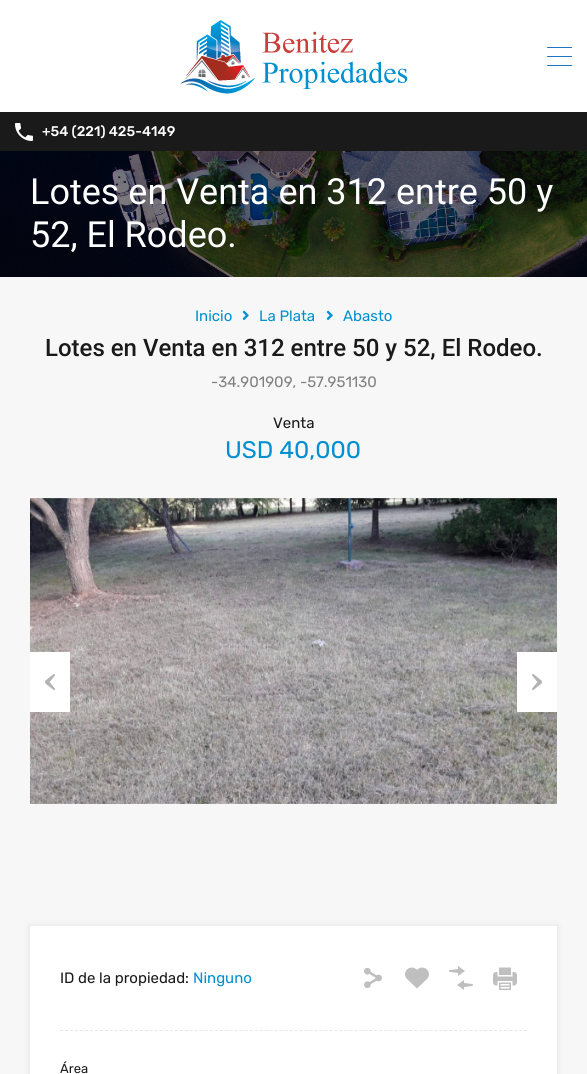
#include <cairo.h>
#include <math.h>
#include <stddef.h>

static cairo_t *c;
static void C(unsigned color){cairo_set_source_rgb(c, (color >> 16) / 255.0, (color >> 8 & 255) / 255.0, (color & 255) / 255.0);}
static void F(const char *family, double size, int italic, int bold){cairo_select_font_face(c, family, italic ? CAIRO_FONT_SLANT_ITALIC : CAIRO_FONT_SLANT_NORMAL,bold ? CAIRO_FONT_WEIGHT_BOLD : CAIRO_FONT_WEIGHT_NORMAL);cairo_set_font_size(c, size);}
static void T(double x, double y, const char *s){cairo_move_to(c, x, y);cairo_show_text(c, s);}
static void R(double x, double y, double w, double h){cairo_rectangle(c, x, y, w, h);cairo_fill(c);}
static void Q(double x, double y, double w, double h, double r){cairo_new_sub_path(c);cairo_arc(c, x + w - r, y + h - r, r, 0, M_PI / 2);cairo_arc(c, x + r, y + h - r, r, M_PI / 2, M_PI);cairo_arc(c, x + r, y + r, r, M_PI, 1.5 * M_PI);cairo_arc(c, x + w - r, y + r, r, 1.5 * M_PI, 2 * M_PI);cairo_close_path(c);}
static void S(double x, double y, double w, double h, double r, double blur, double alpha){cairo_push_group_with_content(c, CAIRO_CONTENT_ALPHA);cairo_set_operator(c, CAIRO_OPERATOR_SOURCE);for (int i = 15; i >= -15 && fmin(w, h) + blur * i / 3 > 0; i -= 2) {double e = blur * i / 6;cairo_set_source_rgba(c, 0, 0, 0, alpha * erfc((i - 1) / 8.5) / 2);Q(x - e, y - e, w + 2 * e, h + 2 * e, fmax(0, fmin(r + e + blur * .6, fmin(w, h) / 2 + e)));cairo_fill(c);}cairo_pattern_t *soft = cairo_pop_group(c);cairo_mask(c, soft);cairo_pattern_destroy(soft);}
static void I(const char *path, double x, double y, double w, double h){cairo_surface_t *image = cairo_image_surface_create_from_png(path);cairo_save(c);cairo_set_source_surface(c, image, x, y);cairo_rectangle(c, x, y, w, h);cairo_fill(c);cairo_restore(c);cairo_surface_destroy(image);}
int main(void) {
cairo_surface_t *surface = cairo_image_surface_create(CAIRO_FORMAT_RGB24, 587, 1074);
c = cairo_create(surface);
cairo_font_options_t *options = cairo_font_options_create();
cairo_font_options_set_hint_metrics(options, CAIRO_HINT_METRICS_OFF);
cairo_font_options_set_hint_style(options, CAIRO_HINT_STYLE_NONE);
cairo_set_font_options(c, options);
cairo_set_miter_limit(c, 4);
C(0xf7f7f7);
cairo_paint(c);
C(0xffffff);
R(0,0,587,112);
I("1.png",180,20,228,74);
C(0x1e73be);
Q(547,56,25,1,.5);
cairo_fill(c);
Q(547,47,25,1,.5);
cairo_fill(c);
Q(547,65,25,1,.5);
cairo_fill(c);
C(0x1a1a1a);
R(0,112,587,39);
I("2.png",15,123,18,18);
F("Rubik Medium",14,0,0);
C(0xffffff);
T(42,136,"+54 (221) 425-4149");
I("3.png",0,151,587,126);
F("Roboto",36,0,0);
T(30,204,"Lotes en Venta en 312 entre 50 y");
T(30,247,"52, El Rodeo.");
F("Rubik",15,0,0);
C(0x0090d0);
T(195,321,"Inicio");
I("4.png",242,310,7,10);
T(259,321,"La Plata");
I("4.png",326,310,7,10);
T(343,321,"Abasto");
F("Roboto Medium",24,0,0);
C(0x1a1a1a);
T(45,356,"Lotes en Venta en 312 entre 50 y 52, El Rodeo.");
F("Rubik",15,0,0);
C(0x808080);
T(211,387,"-34.901909, -57.951130");
C(0x1a1a1a);
T(273,428,"Venta");
F("Rubik",24,0,0);
C(0x0090d0);
T(225,458,"USD 40,000");
I("5.png",30,498,527,306);
C(0xffffff);
R(30,652,40,60);
I("6.png",45,674,10,16);
R(517,652,40,60);
I("7.png",532,674,10,16);
C(0x000000);
S(28,924,531,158,0,2.5,.05);
C(0xffffff);
R(30,926,527,148);
cairo_new_path(c);
cairo_move_to(c,60,1030.5);
cairo_line_to(c,527,1030.5);
C(0xe6e6e6);
cairo_set_line_width(c,1);
cairo_set_dash(c,(double[]){3,1.99},2,0);
cairo_stroke(c);
F("Rubik",15,0,0);
C(0x1a1a1a);
T(60,983,"ID de la propiedad:");
C(0x0090d0);
T(193,983,"Ninguno");
I("8.png",364,967,18,22);
I("9.png",405,967,24,22);
I("10.png",449,966,24,24);
I("11.png",493,967,24,23);
F("Rubik",13,0,0);
C(0x1a1a1a);
T(60,1073,"Área");
cairo_surface_write_to_png(surface, "o.png");
cairo_font_options_destroy(options);
cairo_destroy(c);
cairo_surface_destroy(surface);
return 0;
}
